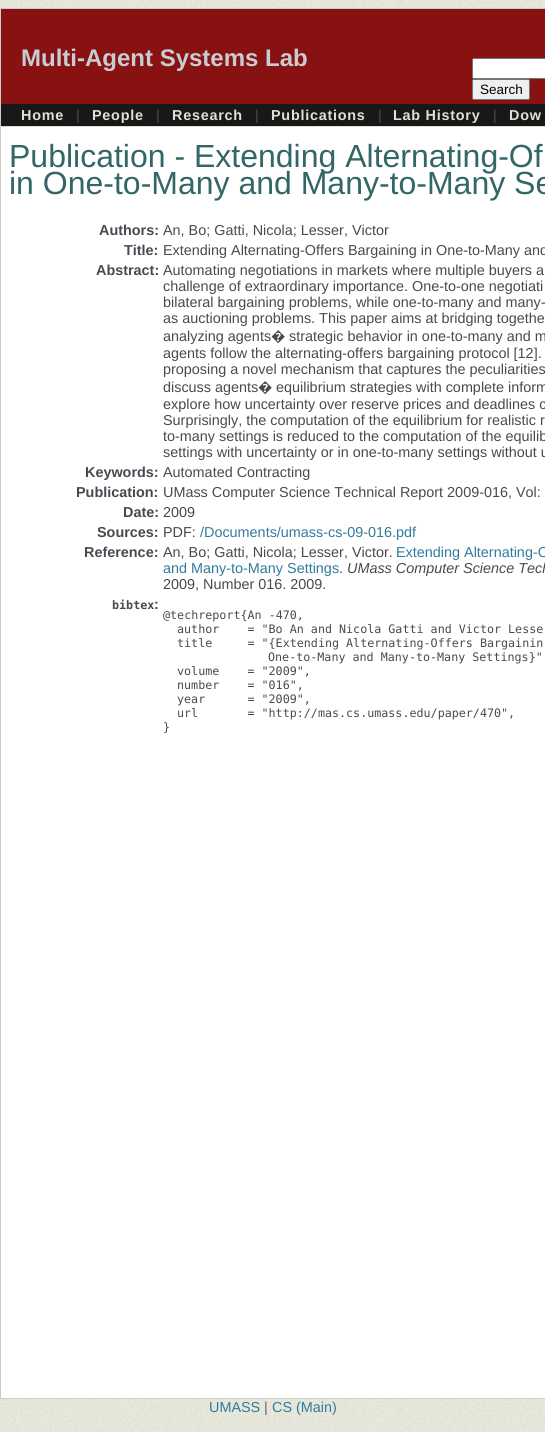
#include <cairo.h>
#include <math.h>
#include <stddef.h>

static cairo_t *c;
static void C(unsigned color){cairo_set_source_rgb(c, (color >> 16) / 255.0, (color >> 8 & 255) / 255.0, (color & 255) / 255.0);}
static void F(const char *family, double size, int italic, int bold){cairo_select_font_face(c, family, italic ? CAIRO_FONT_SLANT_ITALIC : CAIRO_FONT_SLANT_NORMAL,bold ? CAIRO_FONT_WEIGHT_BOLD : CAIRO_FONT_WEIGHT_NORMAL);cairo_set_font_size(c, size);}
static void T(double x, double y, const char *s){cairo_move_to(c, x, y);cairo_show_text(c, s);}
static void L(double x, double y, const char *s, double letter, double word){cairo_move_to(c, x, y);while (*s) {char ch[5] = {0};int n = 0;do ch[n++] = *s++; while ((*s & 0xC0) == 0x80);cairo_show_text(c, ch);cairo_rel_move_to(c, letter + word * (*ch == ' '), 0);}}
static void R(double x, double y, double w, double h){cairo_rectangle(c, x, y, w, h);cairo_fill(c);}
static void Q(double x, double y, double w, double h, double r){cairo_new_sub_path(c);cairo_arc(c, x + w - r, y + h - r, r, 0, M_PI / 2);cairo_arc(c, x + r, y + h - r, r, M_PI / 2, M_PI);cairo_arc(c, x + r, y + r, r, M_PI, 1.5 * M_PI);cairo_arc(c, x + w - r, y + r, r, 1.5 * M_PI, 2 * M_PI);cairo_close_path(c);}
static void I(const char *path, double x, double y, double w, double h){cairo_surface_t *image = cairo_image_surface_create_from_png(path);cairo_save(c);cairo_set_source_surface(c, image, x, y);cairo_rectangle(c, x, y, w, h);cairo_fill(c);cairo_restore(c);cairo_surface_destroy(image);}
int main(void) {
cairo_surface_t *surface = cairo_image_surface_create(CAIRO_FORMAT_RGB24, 545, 1432);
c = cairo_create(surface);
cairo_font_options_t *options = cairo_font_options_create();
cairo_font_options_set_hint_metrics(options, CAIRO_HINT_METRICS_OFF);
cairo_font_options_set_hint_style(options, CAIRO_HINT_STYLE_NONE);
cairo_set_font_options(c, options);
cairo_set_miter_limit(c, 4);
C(0xffffff);
cairo_paint(c);
I("1.png",0,0,545,1432);
C(0xffffff);
R(1,127,544,1271);
cairo_rectangle(c,.5,8.5,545,1390);
C(0xcccccc);
cairo_set_line_width(c,1);
cairo_stroke(c);
C(0x881111);
R(1,9,544,95);
F("Liberation Sans",24,0,1);
C(0xc9ccd3);
T(21,66,"Multi-Agent Systems Lab");
C(0xffffff);
Q(472.5,58.5,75,20,1.5);
cairo_fill_preserve(c);
C(0x767676);
cairo_stroke(c);
C(0xefefef);
Q(472.5,79.5,57,20,1.5);
cairo_fill_preserve(c);
C(0x767676);
cairo_stroke(c);
F("Liberation Sans",13.5,0,0);
C(0x000000);
T(480,94,"Search");
C(0x181818);
R(1,104,544,22);
F("Liberation Sans",14.4,0,1);
C(0xe0e0d5);
L(21,120,"Home",.75,0);
F("Liberation Sans",14.4,0,0);
C(0x474a51);
T(76,120,"|");
F("Liberation Sans",14.4,0,1);
C(0xe0e0d5);
L(92,120,"People",.75,0);
F("Liberation Sans",14.4,0,0);
C(0x474a51);
T(156,120,"|");
F("Liberation Sans",14.4,0,1);
C(0xe0e0d5);
L(172,120,"Research",.75,0);
F("Liberation Sans",14.4,0,0);
C(0x474a51);
T(255,120,"|");
F("Liberation Sans",14.4,0,1);
C(0xe0e0d5);
L(271,120,"Publications",.75,0);
F("Liberation Sans",14.4,0,0);
C(0x474a51);
T(378,120,"|");
F("Liberation Sans",14.4,0,1);
C(0xe0e0d5);
L(393,120,"Lab History",.75,0);
F("Liberation Sans",14.4,0,0);
C(0x474a51);
T(493,120,"|");
F("Liberation Sans",14.4,0,1);
C(0xe0e0d5);
L(509,120,"Dow",.75,0);
R(1,126,544,1);
F("Liberation Sans",32,0,0);
C(0x336666);
T(9,167,"Publication - Extending Alternating-Of");
T(9,194,"in One-to-Many and Many-to-Many Se");
F("Liberation Sans",14.4,0,1);
C(0x474a51);
T(99,235,"Authors:");
F("Liberation Sans",14.4,0,0);
T(163,235,"An, Bo; Gatti, Nicola; Lesser, Victor");
F("Liberation Sans",14.4,0,1);
T(124,255,"Title:");
F("Liberation Sans",14.4,0,0);
T(163,255,"Extending Alternating-Offers Bargaining in One-to-Many and");
F("Liberation Sans",14.4,0,1);
T(96,275,"Abstract:");
F("Liberation Sans",14.4,0,0);
T(163,275,"Automating negotiations in markets where multiple buyers a");
T(163,291,"challenge of extraordinary importance. One-to-one negotiati");
T(163,307,"bilateral bargaining problems, while one-to-many and many-");
T(163,323,"as auctioning problems. This paper aims at bridging togethe");
T(163,341,"analyzing agents");
F("Noto Sans",14.4,0,0);
T(271,341,"�");
F("Liberation Sans",14.4,0,0);
T(289,341,"strategic behavior in one-to-many and m");
T(163,358,"agents follow the alternating-offers bargaining protocol [12].");
T(163,374,"proposing a novel mechanism that captures the peculiarities");
T(163,392,"discuss agents");
F("Noto Sans",14.4,0,0);
T(258,392,"�");
F("Liberation Sans",14.4,0,0);
T(276,392,"equilibrium strategies with complete inform");
T(163,409,"explore how uncertainty over reserve prices and deadlines c");
T(163,425,"Surprisingly, the computation of the equilibrium for realistic r");
T(163,441,"to-many settings is reduced to the computation of the equilib");
T(163,457,"settings with uncertainty or in one-to-many settings without u");
F("Liberation Sans",14.4,0,1);
T(85,477,"Keywords:");
F("Liberation Sans",14.4,0,0);
T(163,477,"Automated Contracting");
F("Liberation Sans",14.4,0,1);
T(76,497,"Publication:");
F("Liberation Sans",14.4,0,0);
T(163,497,"UMass Computer Science Technical Report 2009-016, Vol:");
F("Liberation Sans",14.4,0,1);
T(123,517,"Date:");
F("Liberation Sans",14.4,0,0);
T(163,517,"2009");
F("Liberation Sans",14.4,0,1);
T(97,537,"Sources:");
F("Liberation Sans",14.4,0,0);
T(163,537,"PDF:");
C(0x317b9e);
T(200,537,"/Documents/umass-cs-09-016.pdf");
F("Liberation Sans",14.4,0,1);
C(0x474a51);
T(84,557,"Reference:");
F("Liberation Sans",14.4,0,0);
T(163,557,"An, Bo; Gatti, Nicola; Lesser, Victor.");
C(0x317b9e);
T(396,557,"Extending Alternating-O");
T(163,573,"and Many-to-Many Settings");
C(0x474a51);
T(339,573,".");
F("Liberation Sans",14.4,1,0);
T(347,573,"UMass Computer Science Tech");
F("Liberation Sans",14.4,0,0);
T(163,589,"2009, Number 016. 2009.");
F("DejaVu Sans Mono",11.7,0,1);
T(112,609,"bibtex");
F("Liberation Sans",14.4,0,1);
T(154,609,":");
F("DejaVu Sans Mono",11.7,0,0);
T(163,619,"@techreport{An -470,");
T(177,633,"author    = \"Bo An and Nicola Gatti and Victor Lesse");
T(177,647,"title     = \"{Extending Alternating-Offers Bargainin");
T(268,661,"One-to-Many and Many-to-Many Settings}\"");
T(177,675,"volume    = \"2009\",");
T(177,689,"number    = \"016\",");
T(177,703,"year      = \"2009\",");
T(177,717,"url       = \"http://mas.cs.umass.edu/paper/470\",");
T(163,731,"}");
F("Liberation Sans",14.4,0,0);
C(0x317b9e);
T(209,1412,"UMASS");
C(0x646870);
T(264,1412,"|");
C(0x317b9e);
T(272,1412,"CS (Main)");
cairo_surface_write_to_png(surface, "o.png");
cairo_font_options_destroy(options);
cairo_destroy(c);
cairo_surface_destroy(surface);
return 0;
}
